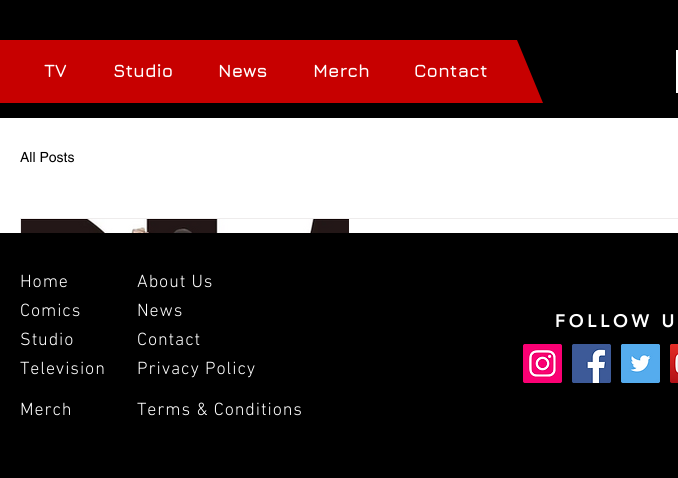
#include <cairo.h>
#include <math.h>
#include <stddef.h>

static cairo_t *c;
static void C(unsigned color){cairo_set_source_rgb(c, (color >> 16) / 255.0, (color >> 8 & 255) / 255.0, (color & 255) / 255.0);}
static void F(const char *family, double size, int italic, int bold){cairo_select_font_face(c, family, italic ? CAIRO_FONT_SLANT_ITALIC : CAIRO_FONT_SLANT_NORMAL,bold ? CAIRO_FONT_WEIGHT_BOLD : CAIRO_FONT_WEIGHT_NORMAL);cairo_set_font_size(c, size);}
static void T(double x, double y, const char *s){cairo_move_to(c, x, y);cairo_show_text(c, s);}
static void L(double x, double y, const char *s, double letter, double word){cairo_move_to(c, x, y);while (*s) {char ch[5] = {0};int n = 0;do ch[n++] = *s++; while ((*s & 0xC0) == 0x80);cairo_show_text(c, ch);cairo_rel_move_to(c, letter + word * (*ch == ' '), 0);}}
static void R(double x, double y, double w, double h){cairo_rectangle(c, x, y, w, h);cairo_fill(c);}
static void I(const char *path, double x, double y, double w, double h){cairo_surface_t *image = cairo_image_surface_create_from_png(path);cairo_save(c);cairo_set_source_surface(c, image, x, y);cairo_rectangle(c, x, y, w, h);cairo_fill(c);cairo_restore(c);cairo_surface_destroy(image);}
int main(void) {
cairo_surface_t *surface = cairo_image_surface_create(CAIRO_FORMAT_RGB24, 678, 478);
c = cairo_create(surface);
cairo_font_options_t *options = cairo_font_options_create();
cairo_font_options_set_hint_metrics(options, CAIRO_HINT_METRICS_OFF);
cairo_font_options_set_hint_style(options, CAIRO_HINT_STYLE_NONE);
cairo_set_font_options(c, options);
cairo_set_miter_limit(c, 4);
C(0x000000);
cairo_paint(c);
C(0xc70000);
R(0,40,437,63);
cairo_new_path(c);
cairo_move_to(c,543,103);
cairo_line_to(c,411,103);
cairo_line_to(c,437,40);
cairo_line_to(c,517,40);
cairo_close_path(c);
cairo_fill(c);
F("Jura",18,0,1);
C(0xffffff);
T(44,77,"TV");
T(113,77,"Studio");
T(218,77,"News");
T(313,77,"Merch");
T(414,77,"Contact");
R(676,50,2,43);
R(0,118,678,115);
F("helvetica",14,0,0);
C(0x000000);
T(20,162,"All Posts");
cairo_rectangle(c,20.5,218.5,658,247);
C(0xeeecec);
cairo_set_line_width(c,1);
cairo_stroke(c);
I("1.png",21,219,328,14);
C(0x000000);
R(20,233,658,233);
F("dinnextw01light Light",18,0,0);
C(0xffffff);
L(20,287,"Home",.9,0);
L(137,287,"About Us",.9,0);
L(20,316,"Comics",.9,0);
L(137,316,"News",.9,0);
L(20,345,"Studio",.9,0);
L(137,345,"Contact",.9,0);
L(20,374,"Television",.9,0);
L(137,374,"Privacy Policy",.9,0);
L(20,415,"Merch",.9,0);
L(137,415,"Terms & Conditions",.9,0);
F("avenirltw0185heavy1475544 Black",18,0,0);
L(555,327,"FOLLOW U",3.5,0);
I("2.png",523,344,39,39);
I("3.png",572,344,39,39);
I("4.png",621,344,39,39);
I("5.png",670,344,8,39);
cairo_surface_write_to_png(surface, "o.png");
cairo_font_options_destroy(options);
cairo_destroy(c);
cairo_surface_destroy(surface);
return 0;
}
